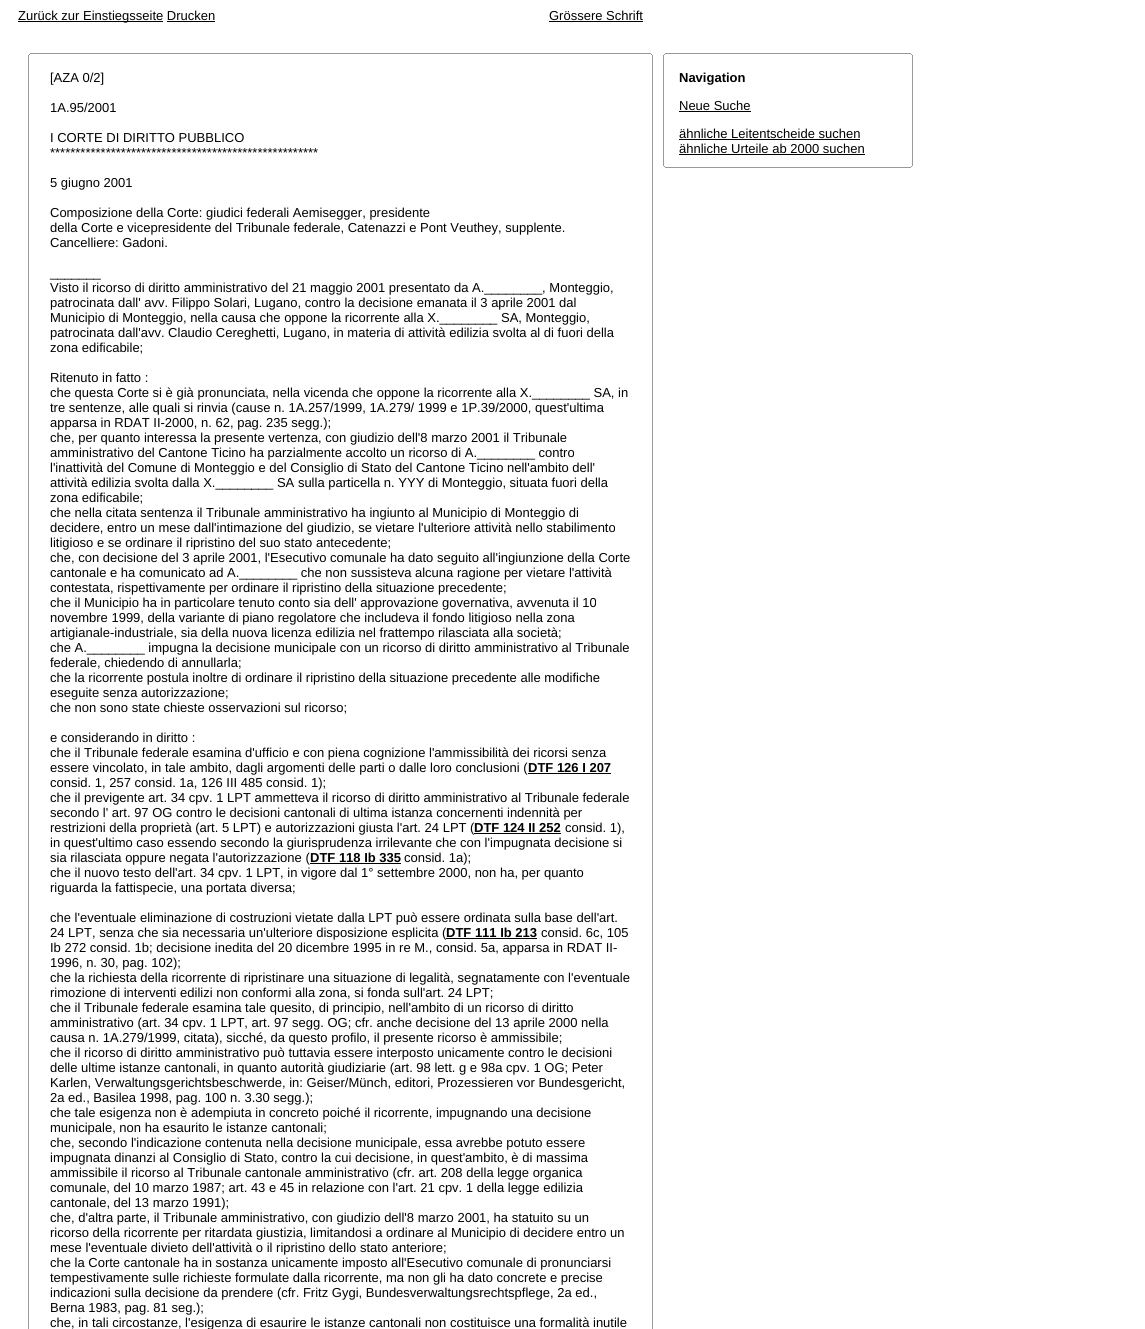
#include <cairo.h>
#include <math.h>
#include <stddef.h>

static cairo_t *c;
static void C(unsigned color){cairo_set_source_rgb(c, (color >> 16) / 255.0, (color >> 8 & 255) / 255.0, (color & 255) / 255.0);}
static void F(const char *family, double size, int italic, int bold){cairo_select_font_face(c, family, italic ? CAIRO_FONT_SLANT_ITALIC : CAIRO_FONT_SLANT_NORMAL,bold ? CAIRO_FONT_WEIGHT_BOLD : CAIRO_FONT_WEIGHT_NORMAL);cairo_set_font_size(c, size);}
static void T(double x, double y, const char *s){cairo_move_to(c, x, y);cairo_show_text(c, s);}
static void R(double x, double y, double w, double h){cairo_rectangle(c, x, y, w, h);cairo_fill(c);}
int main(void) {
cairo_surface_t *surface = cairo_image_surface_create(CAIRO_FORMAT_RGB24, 1145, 1329);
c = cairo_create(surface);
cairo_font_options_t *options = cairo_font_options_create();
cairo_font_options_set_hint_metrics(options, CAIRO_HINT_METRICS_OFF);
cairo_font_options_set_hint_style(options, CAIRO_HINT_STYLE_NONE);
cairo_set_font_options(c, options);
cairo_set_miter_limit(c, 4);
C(0xffffff);
cairo_paint(c);
C(0x000000);
R(18,21,145,1);
F("Liberation Sans",13,0,0);
T(18,20,"Zurück zur Einstiegsseite Drucken");
R(167,21,48,1);
T(549,20,"Grössere Schrift");
R(549,21,94,1);
C(0x999999);
R(30,53,621,1);
R(651,54,1,1);
R(29,54,1,1);
R(652,55,1,1274);
R(28,55,1,1274);
C(0x000000);
T(50,82,"[AZA 0/2]");
T(50,112,"1A.95/2001");
T(50,142,"I CORTE DI DIRITTO PUBBLICO");
T(50,157,"*****************************************************");
T(50,187,"5 giugno 2001");
T(50,217,"Composizione della Corte: giudici federali Aemisegger, presidente");
T(50,232,"della Corte e vicepresidente del Tribunale federale, Catenazzi e Pont Veuthey, supplente.");
T(50,247,"Cancelliere: Gadoni.");
T(50,277,"_______");
T(50,292,"Visto il ricorso di diritto amministrativo del 21 maggio 2001 presentato da A.________, Monteggio,");
T(50,307,"patrocinata dall' avv. Filippo Solari, Lugano, contro la decisione emanata il 3 aprile 2001 dal");
T(50,322,"Municipio di Monteggio, nella causa che oppone la ricorrente alla X.________ SA, Monteggio,");
T(50,337,"patrocinata dall'avv. Claudio Cereghetti, Lugano, in materia di attività edilizia svolta al di fuori della");
T(50,352,"zona edificabile;");
T(50,382,"Ritenuto in fatto :");
T(50,397,"che questa Corte si è già pronunciata, nella vicenda che oppone la ricorrente alla X.________ SA, in");
T(50,412,"tre sentenze, alle quali si rinvia (cause n. 1A.257/1999, 1A.279/ 1999 e 1P.39/2000, quest'ultima");
T(50,427,"apparsa in RDAT II-2000, n. 62, pag. 235 segg.);");
T(50,442,"che, per quanto interessa la presente vertenza, con giudizio dell'8 marzo 2001 il Tribunale");
T(50,457,"amministrativo del Cantone Ticino ha parzialmente accolto un ricorso di A.________ contro");
T(50,472,"l'inattività del Comune di Monteggio e del Consiglio di Stato del Cantone Ticino nell'ambito dell'");
T(50,487,"attività edilizia svolta dalla X.________ SA sulla particella n. YYY di Monteggio, situata fuori della");
T(50,502,"zona edificabile;");
T(50,517,"che nella citata sentenza il Tribunale amministrativo ha ingiunto al Municipio di Monteggio di");
T(50,532,"decidere, entro un mese dall'intimazione del giudizio, se vietare l'ulteriore attività nello stabilimento");
T(50,547,"litigioso e se ordinare il ripristino del suo stato antecedente;");
T(50,562,"che, con decisione del 3 aprile 2001, l'Esecutivo comunale ha dato seguito all'ingiunzione della Corte");
T(50,577,"cantonale e ha comunicato ad A.________ che non sussisteva alcuna ragione per vietare l'attività");
T(50,592,"contestata, rispettivamente per ordinare il ripristino della situazione precedente;");
T(50,607,"che il Municipio ha in particolare tenuto conto sia dell' approvazione governativa, avvenuta il 10");
T(50,622,"novembre 1999, della variante di piano regolatore che includeva il fondo litigioso nella zona");
T(50,637,"artigianale-industriale, sia della nuova licenza edilizia nel frattempo rilasciata alla società;");
T(50,652,"che A.________ impugna la decisione municipale con un ricorso di diritto amministrativo al Tribunale");
T(50,667,"federale, chiedendo di annullarla;");
T(50,682,"che la ricorrente postula inoltre di ordinare il ripristino della situazione precedente alle modifiche");
T(50,697,"eseguite senza autorizzazione;");
T(50,712,"che non sono state chieste osservazioni sul ricorso;");
T(50,742,"e considerando in diritto :");
T(50,757,"che il Tribunale federale esamina d'ufficio e con piena cognizione l'ammissibilità dei ricorsi senza");
T(50,772,"essere vincolato, in tale ambito, dagli argomenti delle parti o dalle loro conclusioni (");
F("Liberation Sans",13,0,1);
T(528,772,"DTF 126 I 207");
R(528,773,83,1);
F("Liberation Sans",13,0,0);
T(50,787,"consid. 1, 257 consid. 1a, 126 III 485 consid. 1);");
T(50,802,"che il previgente art. 34 cpv. 1 LPT ammetteva il ricorso di diritto amministrativo al Tribunale federale");
T(50,817,"secondo l' art. 97 OG contro le decisioni cantonali di ultima istanza concernenti indennità per");
T(50,832,"restrizioni della proprietà (art. 5 LPT) e autorizzazioni giusta l'art. 24 LPT (");
F("Liberation Sans",13,0,1);
T(474,832,"DTF 124 II 252");
R(474,833,87,1);
F("Liberation Sans",13,0,0);
T(565,832,"consid. 1),");
T(50,847,"in quest'ultimo caso essendo secondo la giurisprudenza irrilevante che con l'impugnata decisione si");
T(50,862,"sia rilasciata oppure negata l'autorizzazione (");
F("Liberation Sans",13,0,1);
T(310,862,"DTF 118 Ib 335");
R(310,863,91,1);
F("Liberation Sans",13,0,0);
T(404,862,"consid. 1a);");
T(50,877,"che il nuovo testo dell'art. 34 cpv. 1 LPT, in vigore dal 1° settembre 2000, non ha, per quanto");
T(50,892,"riguarda la fattispecie, una portata diversa;");
T(50,922,"che l'eventuale eliminazione di costruzioni vietate dalla LPT può essere ordinata sulla base dell'art.");
T(50,937,"24 LPT, senza che sia necessaria un'ulteriore disposizione esplicita (");
F("Liberation Sans",13,0,1);
T(446,937,"DTF 111 Ib 213");
R(446,938,91,1);
F("Liberation Sans",13,0,0);
T(541,937,"consid. 6c, 105");
T(50,952,"Ib 272 consid. 1b; decisione inedita del 20 dicembre 1995 in re M., consid. 5a, apparsa in RDAT II-");
T(50,967,"1996, n. 30, pag. 102);");
T(50,982,"che la richiesta della ricorrente di ripristinare una situazione di legalità, segnatamente con l'eventuale");
T(50,997,"rimozione di interventi edilizi non conformi alla zona, si fonda sull'art. 24 LPT;");
T(50,1012,"che il Tribunale federale esamina tale quesito, di principio, nell'ambito di un ricorso di diritto");
T(50,1027,"amministrativo (art. 34 cpv. 1 LPT, art. 97 segg. OG; cfr. anche decisione del 13 aprile 2000 nella");
T(50,1042,"causa n. 1A.279/1999, citata), sicché, da questo profilo, il presente ricorso è ammissibile;");
T(50,1057,"che il ricorso di diritto amministrativo può tuttavia essere interposto unicamente contro le decisioni");
T(50,1072,"delle ultime istanze cantonali, in quanto autorità giudiziarie (art. 98 lett. g e 98a cpv. 1 OG; Peter");
T(50,1087,"Karlen, Verwaltungsgerichtsbeschwerde, in: Geiser/Münch, editori, Prozessieren vor Bundesgericht,");
T(50,1102,"2a ed., Basilea 1998, pag. 100 n. 3.30 segg.);");
T(50,1117,"che tale esigenza non è adempiuta in concreto poiché il ricorrente, impugnando una decisione");
T(50,1132,"municipale, non ha esaurito le istanze cantonali;");
T(50,1147,"che, secondo l'indicazione contenuta nella decisione municipale, essa avrebbe potuto essere");
T(50,1162,"impugnata dinanzi al Consiglio di Stato, contro la cui decisione, in quest'ambito, è di massima");
T(50,1177,"ammissibile il ricorso al Tribunale cantonale amministrativo (cfr. art. 208 della legge organica");
T(50,1192,"comunale, del 10 marzo 1987; art. 43 e 45 in relazione con l'art. 21 cpv. 1 della legge edilizia");
T(50,1207,"cantonale, del 13 marzo 1991);");
T(50,1222,"che, d'altra parte, il Tribunale amministrativo, con giudizio dell'8 marzo 2001, ha statuito su un");
T(50,1237,"ricorso della ricorrente per ritardata giustizia, limitandosi a ordinare al Municipio di decidere entro un");
T(50,1252,"mese l'eventuale divieto dell'attività o il ripristino dello stato anteriore;");
T(50,1267,"che la Corte cantonale ha in sostanza unicamente imposto all'Esecutivo comunale di pronunciarsi");
T(50,1282,"tempestivamente sulle richieste formulate dalla ricorrente, ma non gli ha dato concrete e precise");
T(50,1297,"indicazioni sulla decisione da prendere (cfr. Fritz Gygi, Bundesverwaltungsrechtspflege, 2a ed.,");
T(50,1312,"Berna 1983, pag. 81 seg.);");
T(50,1327,"che, in tali circostanze, l'esigenza di esaurire le istanze cantonali non costituisce una formalità inutile");
C(0x999999);
R(665,53,246,1);
R(911,54,1,1);
R(664,54,1,1);
R(912,55,1,111);
R(663,55,1,111);
F("Liberation Sans",13,0,1);
C(0x000000);
T(679,82,"Navigation");
F("Liberation Sans",13,0,0);
T(679,110,"Neue Suche");
R(679,111,72,1);
T(679,138,"ähnliche Leitentscheide suchen");
R(679,139,181,1);
T(679,153,"ähnliche Urteile ab 2000 suchen");
R(679,154,186,1);
C(0x999999);
R(911,166,1,1);
R(664,166,1,1);
R(665,167,246,1);
cairo_surface_write_to_png(surface, "o.png");
cairo_font_options_destroy(options);
cairo_destroy(c);
cairo_surface_destroy(surface);
return 0;
}
